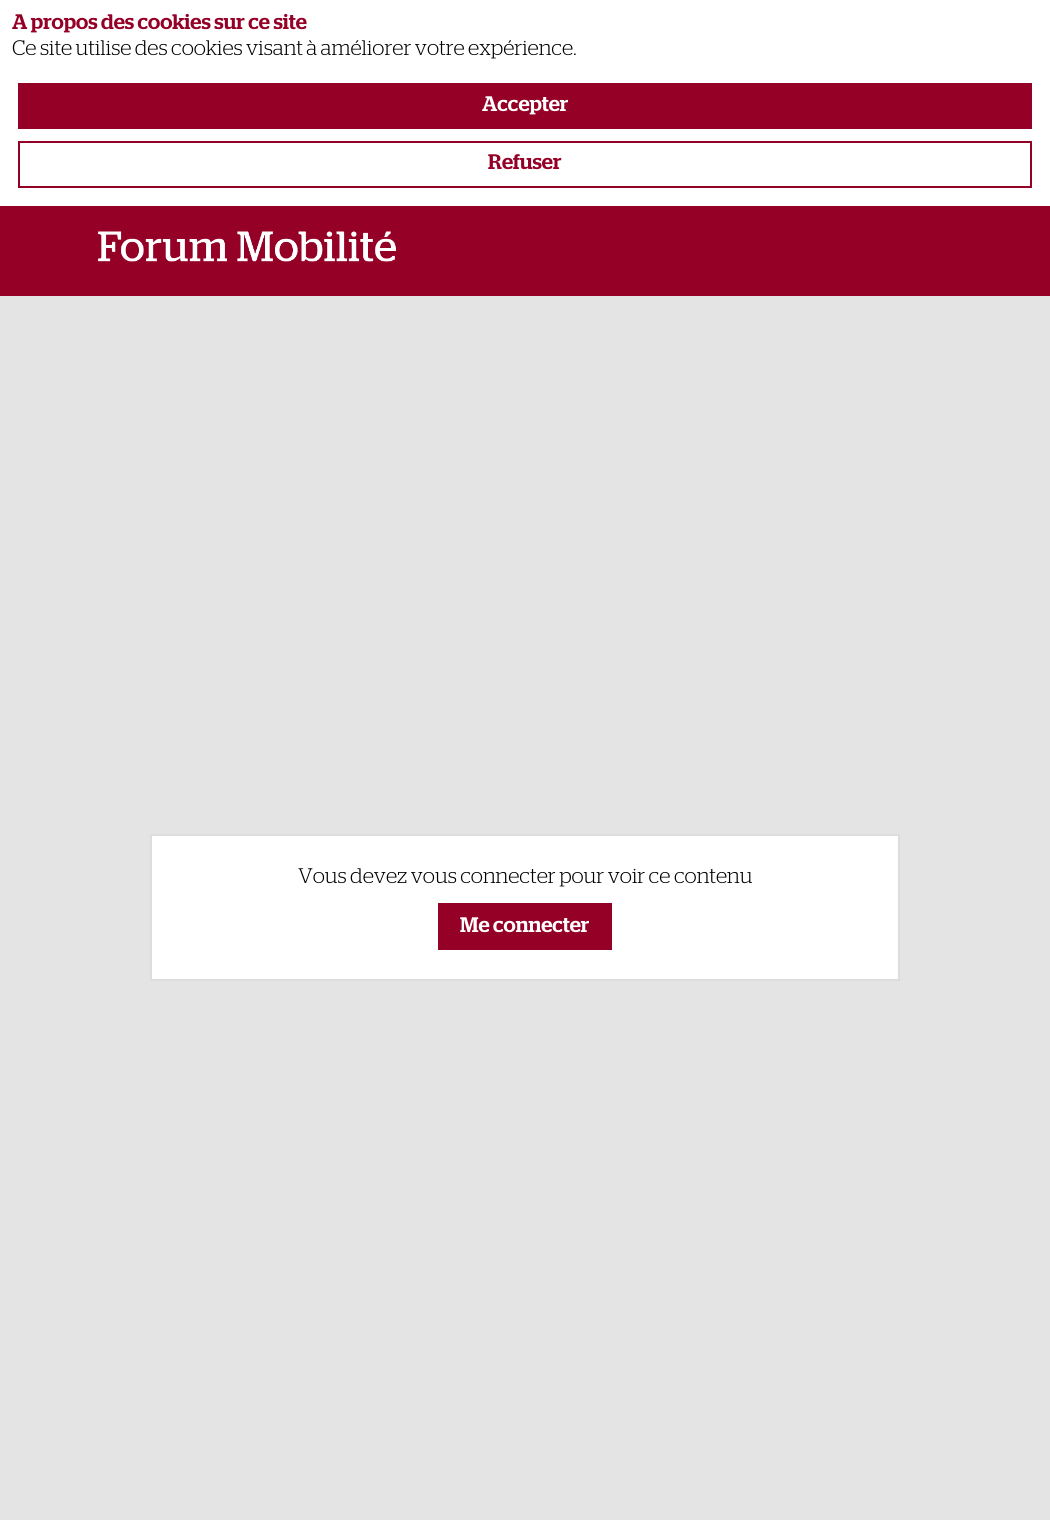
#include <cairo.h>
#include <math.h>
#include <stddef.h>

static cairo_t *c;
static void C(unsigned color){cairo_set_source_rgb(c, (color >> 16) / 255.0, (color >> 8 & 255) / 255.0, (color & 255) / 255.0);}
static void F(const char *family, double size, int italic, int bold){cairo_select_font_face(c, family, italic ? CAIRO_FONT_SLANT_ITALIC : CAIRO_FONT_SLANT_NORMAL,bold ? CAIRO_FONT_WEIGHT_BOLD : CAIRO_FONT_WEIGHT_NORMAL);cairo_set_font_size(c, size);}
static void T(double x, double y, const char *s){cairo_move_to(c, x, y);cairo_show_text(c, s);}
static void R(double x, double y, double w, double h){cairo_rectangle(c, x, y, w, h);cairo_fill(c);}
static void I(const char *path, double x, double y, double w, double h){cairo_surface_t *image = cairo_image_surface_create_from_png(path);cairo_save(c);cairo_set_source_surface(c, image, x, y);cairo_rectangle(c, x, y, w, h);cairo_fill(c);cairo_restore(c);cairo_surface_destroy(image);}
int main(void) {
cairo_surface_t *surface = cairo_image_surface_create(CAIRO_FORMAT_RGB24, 1050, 1520);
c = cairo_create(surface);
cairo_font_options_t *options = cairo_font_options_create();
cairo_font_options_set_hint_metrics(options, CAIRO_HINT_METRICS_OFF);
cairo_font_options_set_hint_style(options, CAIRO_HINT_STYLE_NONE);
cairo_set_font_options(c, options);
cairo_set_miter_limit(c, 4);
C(0xe4e4e4);
cairo_paint(c);
C(0xffffff);
R(0,0,1050,206);
F("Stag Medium",21,0,0);
C(0x940026);
T(12,29,"A propos des cookies sur ce site");
F("Stag Light",21,0,0);
C(0x000000);
T(12,55,"Ce site utilise des cookies visant à améliorer votre expérience.");
C(0x940026);
R(18,83,1014,46);
F("Stag Medium",21,0,0);
C(0xffffff);
T(482,111,"Accepter");
cairo_rectangle(c,19,142,1012,45);
C(0x940026);
cairo_stroke(c);
T(488,169,"Refuser");
R(0,206,1050,90);
I("1.png",98,231,298,31);
C(0xffffff);
cairo_rectangle(c,151,835,748,145);
cairo_fill_preserve(c);
C(0xdddddd);
cairo_stroke(c);
F("Stag Light",21,0,0);
C(0x000000);
T(298,883,"Vous devez vous connecter pour voir ce contenu");
C(0x940026);
R(438,903,174,47);
F("Stag Medium",21,0,0);
C(0xffffff);
T(460,932,"Me connecter");
cairo_surface_write_to_png(surface, "o.png");
cairo_font_options_destroy(options);
cairo_destroy(c);
cairo_surface_destroy(surface);
return 0;
}
